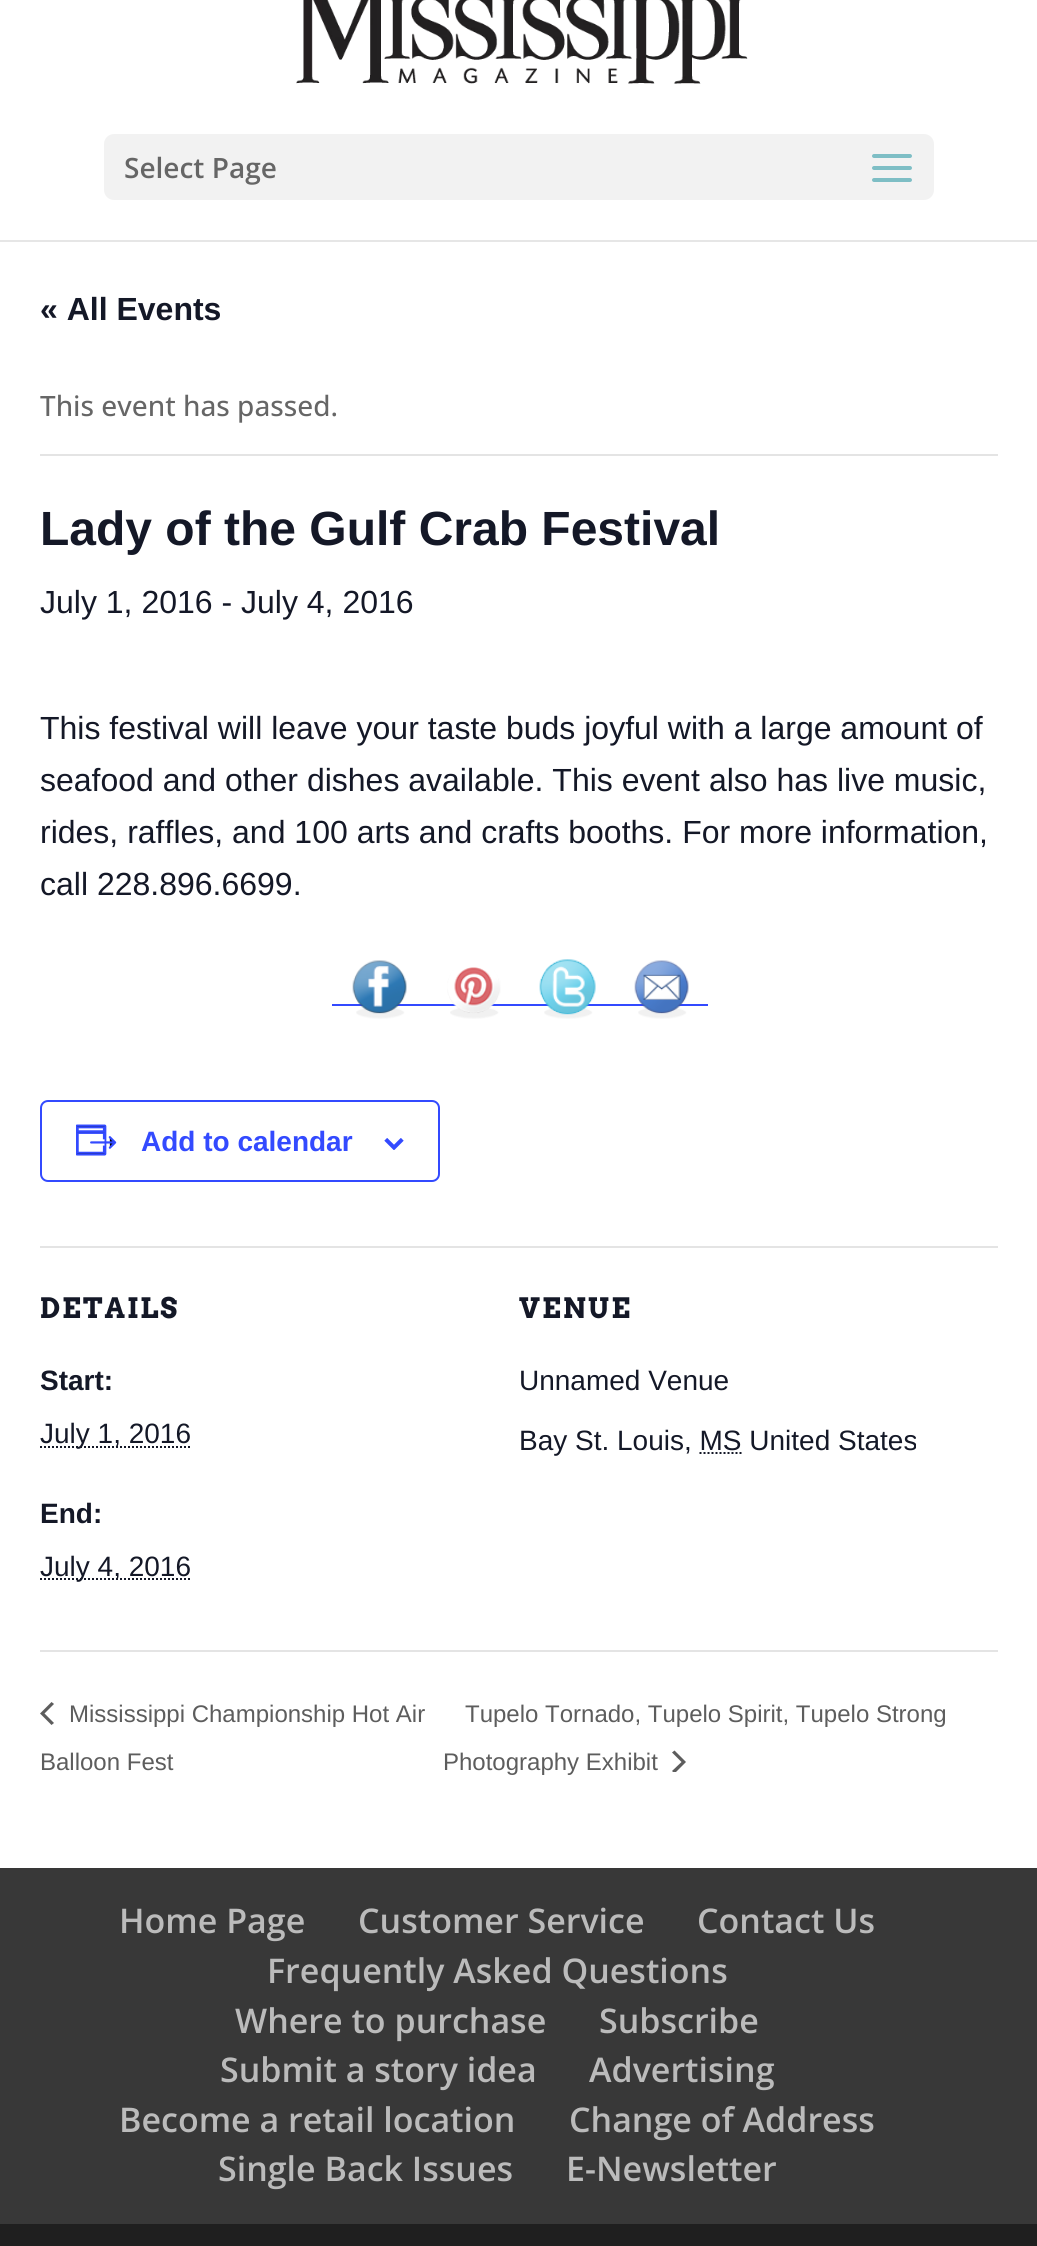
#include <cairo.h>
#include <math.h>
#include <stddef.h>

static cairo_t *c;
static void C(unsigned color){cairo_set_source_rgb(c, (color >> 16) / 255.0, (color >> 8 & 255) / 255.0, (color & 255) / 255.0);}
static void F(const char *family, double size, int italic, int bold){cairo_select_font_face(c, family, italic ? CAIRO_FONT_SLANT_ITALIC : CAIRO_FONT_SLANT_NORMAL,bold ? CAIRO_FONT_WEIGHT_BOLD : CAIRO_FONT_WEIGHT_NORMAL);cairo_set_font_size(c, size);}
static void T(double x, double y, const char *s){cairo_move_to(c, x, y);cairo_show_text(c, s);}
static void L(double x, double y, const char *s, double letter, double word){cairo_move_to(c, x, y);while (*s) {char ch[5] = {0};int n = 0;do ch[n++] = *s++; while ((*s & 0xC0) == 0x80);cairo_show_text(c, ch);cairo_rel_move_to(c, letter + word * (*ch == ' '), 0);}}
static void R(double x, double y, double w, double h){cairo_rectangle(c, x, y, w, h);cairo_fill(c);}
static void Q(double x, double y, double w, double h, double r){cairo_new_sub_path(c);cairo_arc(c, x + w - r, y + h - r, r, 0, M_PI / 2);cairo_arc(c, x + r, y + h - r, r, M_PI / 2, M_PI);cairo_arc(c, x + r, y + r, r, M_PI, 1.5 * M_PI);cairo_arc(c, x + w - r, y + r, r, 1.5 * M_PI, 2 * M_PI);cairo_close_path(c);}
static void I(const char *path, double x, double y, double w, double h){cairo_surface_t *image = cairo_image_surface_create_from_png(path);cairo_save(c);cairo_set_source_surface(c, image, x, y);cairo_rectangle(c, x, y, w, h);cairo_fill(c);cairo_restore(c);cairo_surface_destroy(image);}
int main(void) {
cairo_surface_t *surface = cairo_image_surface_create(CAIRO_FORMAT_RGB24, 1037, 2246);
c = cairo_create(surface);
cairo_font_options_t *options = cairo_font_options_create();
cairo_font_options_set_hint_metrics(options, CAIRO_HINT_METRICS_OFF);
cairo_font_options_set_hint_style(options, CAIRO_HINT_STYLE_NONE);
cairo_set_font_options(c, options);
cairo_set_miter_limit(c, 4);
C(0xffffff);
cairo_paint(c);
C(0xe6e6e6);
R(0,240,1037,2);
I("1.png",296,0,452,84);
C(0xf2f2f2);
Q(104,134,830,66,10);
cairo_fill(c);
F("Open Sans SemiBold",28,0,0);
C(0x666666);
T(124,178,"Select Page");
I("2.png",872,154,40,28);
F("Liberation Sans",32,0,1);
C(0x141827);
T(40,320,"« All Events");
C(0xe4e4e4);
R(40,454,958,2);
F("Open Sans Medium",28,0,0);
C(0x666666);
T(40,416,"This event has passed.");
F("Liberation Sans",48,0,1);
C(0x141827);
T(40,545,"Lady of the Gulf Crab Festival");
F("Liberation Sans",32,0,0);
T(40,613,"July 1, 2016 - July 4, 2016");
T(40,739,"This festival will leave your taste buds joyful with a large amount of");
T(40,791,"seafood and other dishes available. This event also has live music,");
T(40,843,"rides, raffles, and 100 arts and crafts booths. For more information,");
T(40,895,"call 228.896.6699.");
C(0x334aff);
R(332,1004,376,2);
I("3.png",352,960,55,59);
I("4.png",447,967,54,52);
I("5.png",539,959,57,60);
I("6.png",634,960,55,59);
Q(41,1101,398,80,7);
cairo_stroke(c);
I("7.png",76,1124,41,32);
F("Liberation Sans",28,0,1);
T(141,1151,"Add to calendar");
I("8.png",384,1138,20,12);
C(0xe4e4e4);
R(40,1246,958,2);
F("Arvo",28,0,1);
C(0x141827);
L(40,1318,"DETAILS",2,0);
F("Liberation Sans",28,0,1);
T(40,1390,"Start:");
cairo_new_path(c);
cairo_move_to(c,40,1447);
cairo_line_to(c,191,1447);
cairo_set_dash(c,(double[]){2,2},2,0);
cairo_stroke(c);
F("Liberation Sans",28,0,0);
T(40,1443,"July 1, 2016");
F("Liberation Sans",28,0,1);
T(40,1523,"End:");
cairo_new_path(c);
cairo_move_to(c,40,1579);
cairo_line_to(c,191,1579);
cairo_stroke(c);
F("Liberation Sans",28,0,0);
T(40,1576,"July 4, 2016");
F("Arvo",28,0,1);
L(519,1318,"VENUE",2,0);
F("Liberation Sans",28,0,0);
T(519,1390,"Unnamed Venue");
T(519,1450,"Bay St. Louis, MS United States");
cairo_new_path(c);
cairo_move_to(c,699.5,1453);
cairo_line_to(c,741.5,1453);
cairo_stroke(c);
C(0xe4e4e4);
R(40,1650,958,2);
C(0x5d5d5d);
cairo_new_path(c);
cairo_move_to(c,54,1723);
cairo_line_to(c,51.5,1725);
cairo_line_to(c,40,1713.5);
cairo_line_to(c,51.5,1702);
cairo_line_to(c,54,1704);
cairo_line_to(c,44.5,1713.5);
cairo_close_path(c);
cairo_fill(c);
F("Liberation Sans",24,0,0);
T(69,1722,"Mississippi Championship Hot Air");
T(40,1770,"Balloon Fest");
T(465,1722,"Tupelo Tornado, Tupelo Spirit, Tupelo Strong");
T(443,1770,"Photography Exhibit");
cairo_save(c);
cairo_rectangle(c,672,1750,14,22);
cairo_clip(c);
cairo_new_path(c);
cairo_move_to(c,672,1752.5);
cairo_line_to(c,674.5,1750.5);
cairo_line_to(c,686,1762);
cairo_line_to(c,674.5,1773.5);
cairo_line_to(c,672,1771);
cairo_line_to(c,681.5,1762);
cairo_close_path(c);
cairo_fill(c);
cairo_restore(c);
C(0x383838);
R(0,1868,1037,356);
F("Open Sans SemiBold",34,0,0);
C(0xbbbbbb);
T(119,1933,"Home Page");
T(358,1933,"Customer Service");
T(697,1933,"Contact Us");
T(267,1983,"Frequently Asked Questions");
T(235,2033,"Where to purchase");
T(599,2033,"Subscribe");
T(220,2082,"Submit a story idea");
T(589,2082,"Advertising");
T(119,2132,"Become a retail location");
T(569,2132,"Change of Address");
T(218,2181,"Single Back Issues");
T(566,2181,"E-Newsletter");
C(0x1f1f1f);
R(0,2224,1037,22);
cairo_surface_write_to_png(surface, "o.png");
cairo_font_options_destroy(options);
cairo_destroy(c);
cairo_surface_destroy(surface);
return 0;
}
